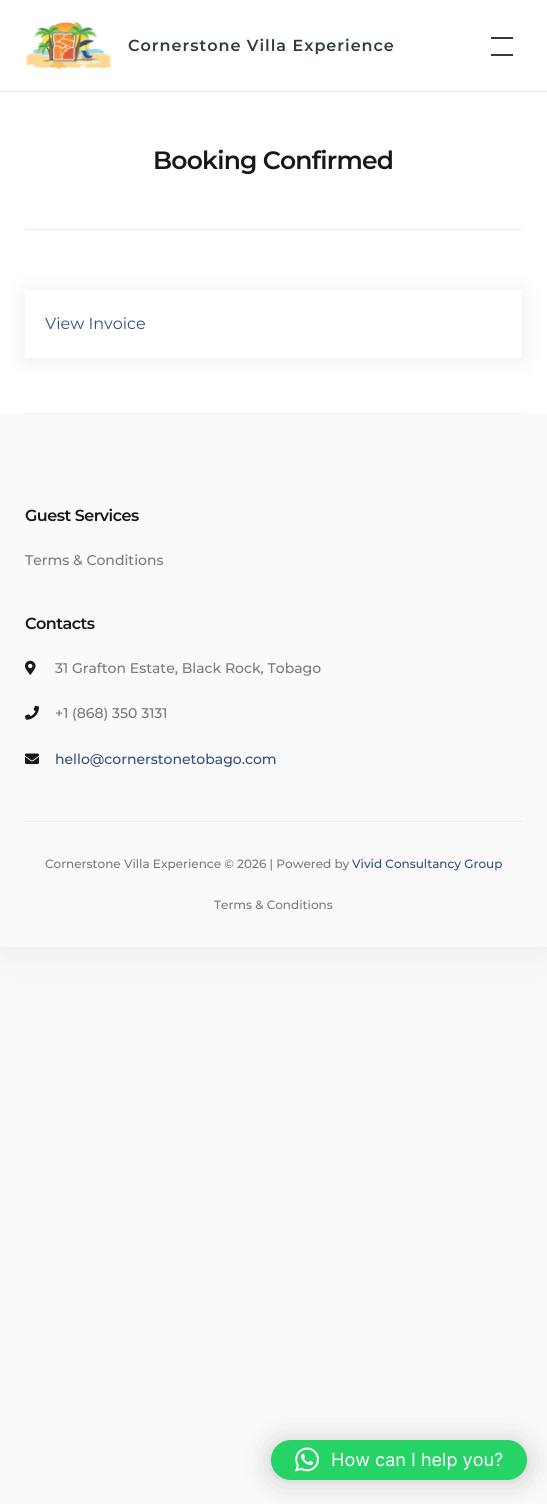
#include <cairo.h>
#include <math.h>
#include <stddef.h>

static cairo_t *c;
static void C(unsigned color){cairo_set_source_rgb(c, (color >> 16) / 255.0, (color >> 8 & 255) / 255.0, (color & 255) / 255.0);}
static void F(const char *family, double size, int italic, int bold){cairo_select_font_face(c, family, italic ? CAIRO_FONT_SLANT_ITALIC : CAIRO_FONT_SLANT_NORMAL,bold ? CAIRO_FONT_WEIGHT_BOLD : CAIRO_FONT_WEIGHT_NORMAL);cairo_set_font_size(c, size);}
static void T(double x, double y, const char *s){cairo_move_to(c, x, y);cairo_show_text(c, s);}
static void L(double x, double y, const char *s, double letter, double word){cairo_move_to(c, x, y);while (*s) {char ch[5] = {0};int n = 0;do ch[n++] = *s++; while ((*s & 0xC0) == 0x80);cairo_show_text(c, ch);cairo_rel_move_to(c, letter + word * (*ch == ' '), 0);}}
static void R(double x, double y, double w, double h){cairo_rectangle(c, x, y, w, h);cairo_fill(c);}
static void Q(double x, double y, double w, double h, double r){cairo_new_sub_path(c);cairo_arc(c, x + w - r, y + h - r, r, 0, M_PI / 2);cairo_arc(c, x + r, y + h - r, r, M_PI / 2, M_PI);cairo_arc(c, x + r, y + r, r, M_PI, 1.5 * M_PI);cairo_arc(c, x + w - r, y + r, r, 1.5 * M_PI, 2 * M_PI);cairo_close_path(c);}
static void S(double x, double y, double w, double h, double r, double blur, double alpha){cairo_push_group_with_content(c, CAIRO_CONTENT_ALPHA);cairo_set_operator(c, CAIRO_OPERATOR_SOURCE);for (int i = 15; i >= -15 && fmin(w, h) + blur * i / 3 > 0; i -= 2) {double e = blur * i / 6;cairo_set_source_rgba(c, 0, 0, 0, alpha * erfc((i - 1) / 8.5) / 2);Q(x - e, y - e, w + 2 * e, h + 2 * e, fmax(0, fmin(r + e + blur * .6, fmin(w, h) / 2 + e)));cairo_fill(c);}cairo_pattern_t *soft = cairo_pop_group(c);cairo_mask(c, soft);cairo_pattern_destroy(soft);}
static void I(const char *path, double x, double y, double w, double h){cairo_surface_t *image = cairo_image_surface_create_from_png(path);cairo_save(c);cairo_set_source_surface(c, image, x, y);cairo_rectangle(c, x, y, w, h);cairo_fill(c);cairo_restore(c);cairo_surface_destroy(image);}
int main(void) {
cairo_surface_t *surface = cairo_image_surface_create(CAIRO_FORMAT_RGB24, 547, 1504);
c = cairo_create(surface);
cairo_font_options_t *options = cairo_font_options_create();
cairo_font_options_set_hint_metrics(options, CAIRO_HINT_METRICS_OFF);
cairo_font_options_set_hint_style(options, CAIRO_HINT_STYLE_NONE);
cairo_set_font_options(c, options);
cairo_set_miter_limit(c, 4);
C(0xfafafa);
cairo_paint(c);
C(0x000000);
S(0,0,547,947,3,20,.09);
C(0xffffff);
R(0,92,547,321);
R(0,0,547,91);
I("1.png",26,22,86,48);
F("Montserrat SemiBold",16,0,0);
C(0x323b44);
L(128,51,"Cornerstone Villa Experience",1,0);
R(491,37,22,2);
R(491,54,22,2);
C(0xebebec);
R(0,91,547,1);
C(0xededed);
R(25,229,497,1);
F("Montserrat SemiBold",25,0,0);
C(0x17181a);
L(153,169,"Booking Confirmed",-.75,0);
cairo_save(c);
cairo_set_fill_rule(c,CAIRO_FILL_RULE_EVEN_ODD);
cairo_new_path(c);
cairo_move_to(c,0,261);
cairo_line_to(c,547,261);
cairo_line_to(c,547,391);
cairo_line_to(c,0,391);
cairo_close_path(c);
cairo_move_to(c,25,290);
cairo_line_to(c,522,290);
cairo_line_to(c,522,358);
cairo_line_to(c,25,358);
cairo_close_path(c);
cairo_clip(c);
C(0x323648);
S(25,292,497,68,0,10,.1);
cairo_restore(c);
F("Montserrat",16,0,0);
C(0x334f7f);
T(45,329,"View Invoice");
C(0xfafafa);
R(0,413,547,534);
C(0xededed);
R(25,413,497,1);
F("Montserrat SemiBold",16,0,0);
C(0x17181a);
L(25,521,"Guest Services",-.5,0);
F("Montserrat Medium",14,0,0);
C(0x767b80);
T(25,565,"Terms & Conditions");
F("Montserrat SemiBold",16,0,0);
C(0x17181a);
L(25,629,"Contacts",-.5,0);
I("2.png",25,660,11,15);
F("Montserrat Medium",14,0,0);
C(0x767b80);
T(55,673,"31 Grafton Estate, Black Rock, Tobago");
I("3.png",25,705,14,15);
T(55,718,"+1 (868) 350 3131");
I("4.png",25,753,14,11);
C(0x334f7f);
T(55,764,"hello@cornerstonetobago.com");
C(0xededee);
R(25,821,497,1);
F("Montserrat Medium",12,0,0);
C(0x767b80);
T(45,868,"Cornerstone Villa Experience © 2026 | Powered by");
C(0x334f7f);
T(352,868,"Vivid Consultancy Group");
C(0x767b80);
T(214,909,"Terms & Conditions");
C(0x000000);
S(271,1442,256,40,20,16,.16);
S(271,1441,256,40,20,3,.06);
C(0x25d366);
Q(271,1440,256,40,20);
cairo_fill(c);
I("5.png",295,1447,24,25);
F("Inter",18,0,0);
C(0xffffff);
T(331,1466,"How can I help you?");
cairo_surface_write_to_png(surface, "o.png");
cairo_font_options_destroy(options);
cairo_destroy(c);
cairo_surface_destroy(surface);
return 0;
}
